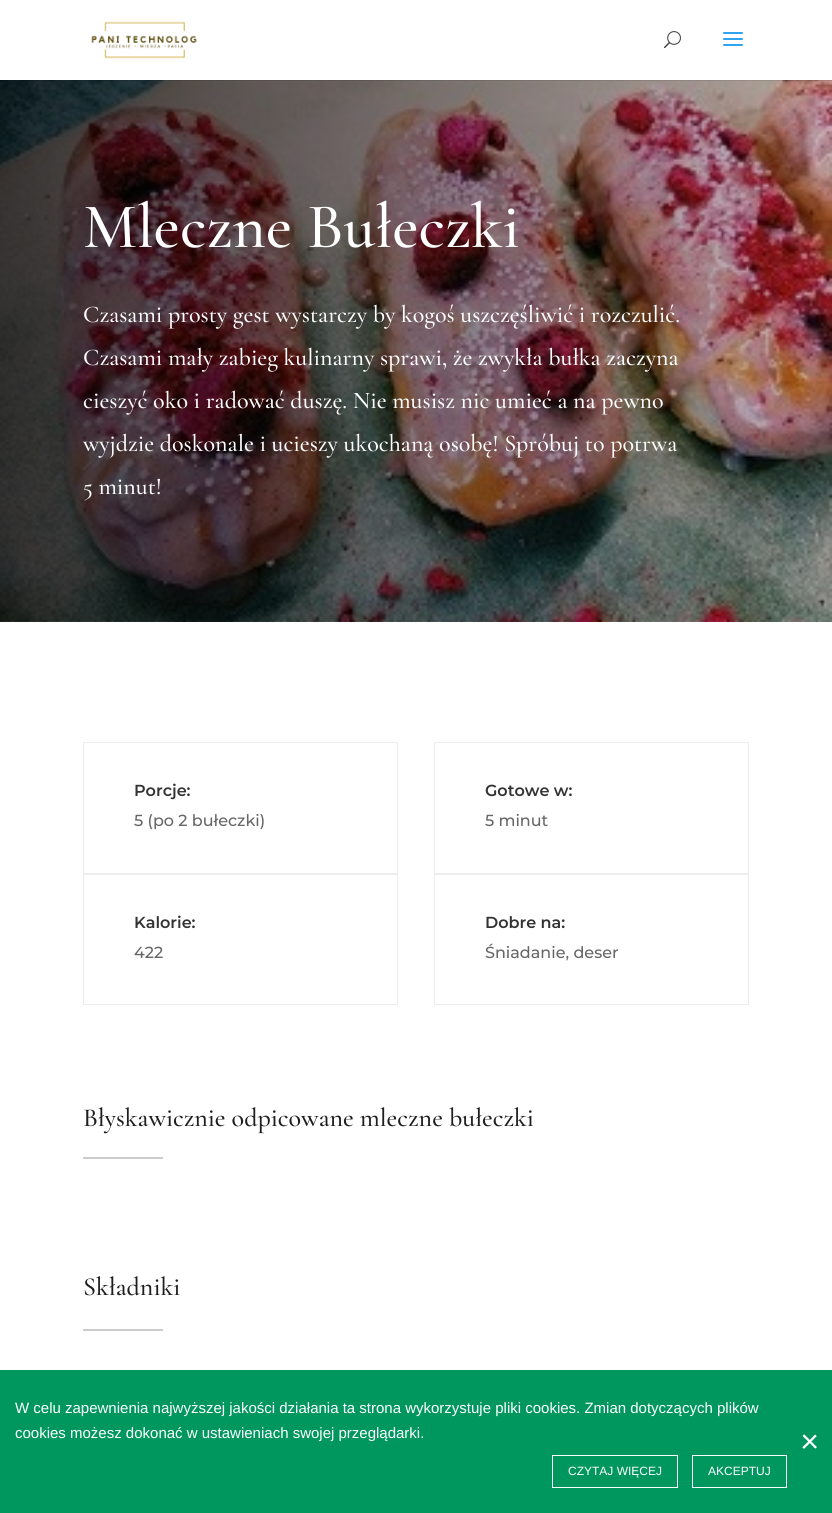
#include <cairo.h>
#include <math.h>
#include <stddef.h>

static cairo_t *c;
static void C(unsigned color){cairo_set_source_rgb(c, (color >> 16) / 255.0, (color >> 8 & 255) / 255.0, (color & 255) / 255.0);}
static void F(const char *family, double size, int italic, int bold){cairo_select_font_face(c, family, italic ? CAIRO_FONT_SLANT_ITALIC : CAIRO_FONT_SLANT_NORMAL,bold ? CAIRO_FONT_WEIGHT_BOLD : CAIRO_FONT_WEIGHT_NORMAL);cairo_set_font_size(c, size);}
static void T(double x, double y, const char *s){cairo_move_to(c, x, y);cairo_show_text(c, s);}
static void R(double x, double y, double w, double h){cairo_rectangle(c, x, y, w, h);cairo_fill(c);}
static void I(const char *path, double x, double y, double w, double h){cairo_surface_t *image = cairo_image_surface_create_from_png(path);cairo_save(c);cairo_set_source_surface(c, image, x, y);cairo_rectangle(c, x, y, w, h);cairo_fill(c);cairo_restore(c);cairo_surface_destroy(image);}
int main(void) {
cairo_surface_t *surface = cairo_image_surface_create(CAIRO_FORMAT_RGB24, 832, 1513);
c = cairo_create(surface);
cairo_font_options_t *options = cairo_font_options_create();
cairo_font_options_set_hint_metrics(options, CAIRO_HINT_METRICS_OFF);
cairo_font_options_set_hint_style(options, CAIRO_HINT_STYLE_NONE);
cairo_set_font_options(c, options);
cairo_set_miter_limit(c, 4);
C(0xffffff);
cairo_paint(c);
I("4.png",0,80,832,542);
cairo_set_source_rgba(c,0,0,0,0.1);
R(0,80,832,1);
I("1.png",91,21,106,38);
I("2.png",664,31,17,18);
I("3.png",723,32,20,14);
F("Cormorant Garamond Medium",64,0,0);
C(0xffffff);
T(83,247,"Mleczne Bułeczki");
F("Cormorant Garamond Medium",24,0,0);
T(83,322,"Czasami prosty gest wystarczy by kogoś uszczęśliwić i rozczulić.");
T(83,365,"Czasami mały zabieg kulinarny sprawi, że zwykła bułka zaczyna");
T(83,408,"cieszyć oko i radować duszę. Nie musisz nic umieć a na pewno");
T(83,451,"wyjdzie doskonale i ucieszy ukochaną osobę! Spróbuj to potrwa");
T(83,494,"5 minut!");
cairo_rectangle(c,83.5,742.5,314,131);
C(0xededed);
cairo_set_line_width(c,1);
cairo_stroke(c);
F("Montserrat SemiBold",16,0,0);
C(0x333333);
T(134,796,"Porcje:");
F("Montserrat Medium",16,0,0);
C(0x666666);
T(134,826,"5 (po 2 bułeczki)");
cairo_rectangle(c,434.5,742.5,314,131);
C(0xededed);
cairo_stroke(c);
F("Montserrat SemiBold",16,0,0);
C(0x333333);
T(485,796,"Gotowe w:");
F("Montserrat Medium",16,0,0);
C(0x666666);
T(485,826,"5 minut");
cairo_rectangle(c,83.5,874.5,314,130);
C(0xededed);
cairo_stroke(c);
F("Montserrat SemiBold",16,0,0);
C(0x333333);
T(134,928,"Kalorie:");
F("Montserrat Medium",16,0,0);
C(0x666666);
T(134,958,"422");
cairo_rectangle(c,434.5,874.5,314,130);
C(0xededed);
cairo_stroke(c);
F("Montserrat SemiBold",16,0,0);
C(0x333333);
T(485,928,"Dobre na:");
F("Montserrat Medium",16,0,0);
C(0x666666);
T(485,958,"Śniadanie, deser");
F("Cormorant Garamond Medium",26,0,0);
C(0x1e1e1e);
T(83,1126,"Błyskawicznie odpicowane mleczne bułeczki");
C(0xcccccc);
R(83,1157,80,2);
C(0x1e1e1e);
T(83,1295,"Składniki");
C(0xcccccc);
R(83,1329,80,2);
C(0x00975f);
R(0,1370,832,143);
F("Liberation Sans",15,0,0);
C(0xffffff);
T(15,1413,"W celu zapewnienia najwyższej jakości działania ta strona wykorzystuje pliki cookies. Zmian dotyczących plików");
T(15,1438,"cookies możesz dokonać w ustawieniach swojej przeglądarki.");
cairo_rectangle(c,552.5,1455.5,125,32);
cairo_stroke(c);
F("Liberation Sans",12,0,0);
T(568,1475,"CZYTAJ WIĘCEJ");
cairo_rectangle(c,692.5,1455.5,94,32);
cairo_stroke(c);
T(708,1475,"AKCEPTUJ");
I("5.png",802,1434,15,15);
cairo_surface_write_to_png(surface, "o.png");
cairo_font_options_destroy(options);
cairo_destroy(c);
cairo_surface_destroy(surface);
return 0;
}
